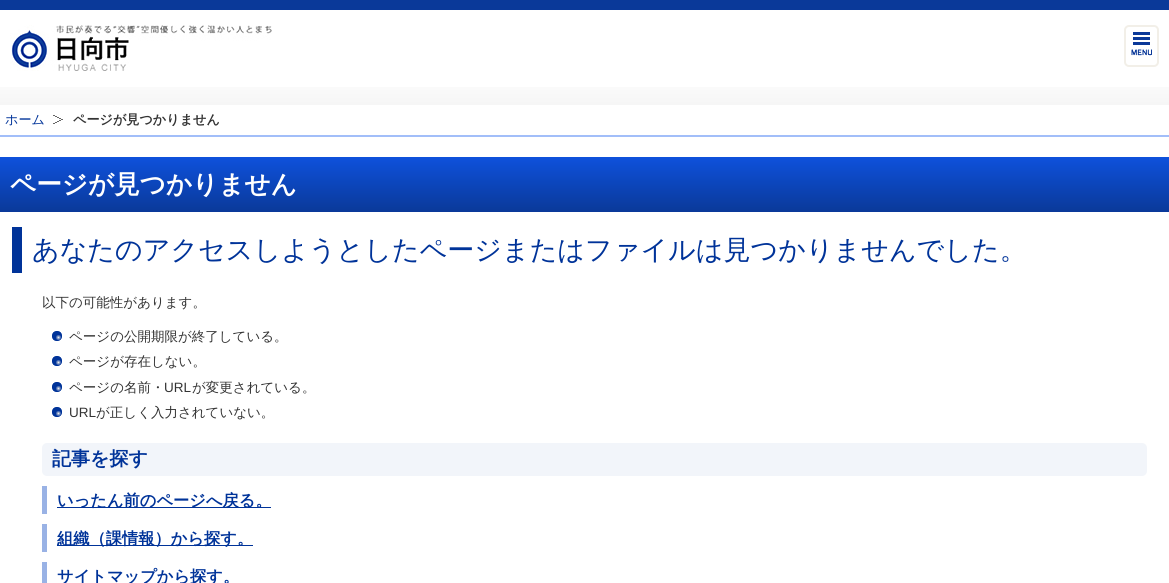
#include <cairo.h>
#include <math.h>
#include <stddef.h>

static cairo_t *c;
static void C(unsigned color){cairo_set_source_rgb(c, (color >> 16) / 255.0, (color >> 8 & 255) / 255.0, (color & 255) / 255.0);}
static void F(const char *family, double size, int italic, int bold){cairo_select_font_face(c, family, italic ? CAIRO_FONT_SLANT_ITALIC : CAIRO_FONT_SLANT_NORMAL,bold ? CAIRO_FONT_WEIGHT_BOLD : CAIRO_FONT_WEIGHT_NORMAL);cairo_set_font_size(c, size);}
static void T(double x, double y, const char *s){cairo_move_to(c, x, y);cairo_show_text(c, s);}
static void R(double x, double y, double w, double h){cairo_rectangle(c, x, y, w, h);cairo_fill(c);}
static void Q(double x, double y, double w, double h, double r){cairo_new_sub_path(c);cairo_arc(c, x + w - r, y + h - r, r, 0, M_PI / 2);cairo_arc(c, x + r, y + h - r, r, M_PI / 2, M_PI);cairo_arc(c, x + r, y + r, r, M_PI, 1.5 * M_PI);cairo_arc(c, x + w - r, y + r, r, 1.5 * M_PI, 2 * M_PI);cairo_close_path(c);}
static void I(const char *path, double x, double y, double w, double h){cairo_surface_t *image = cairo_image_surface_create_from_png(path);cairo_save(c);cairo_set_source_surface(c, image, x, y);cairo_rectangle(c, x, y, w, h);cairo_fill(c);cairo_restore(c);cairo_surface_destroy(image);}
int main(void) {
cairo_surface_t *surface = cairo_image_surface_create(CAIRO_FORMAT_RGB24, 1169, 583);
c = cairo_create(surface);
cairo_font_options_t *options = cairo_font_options_create();
cairo_font_options_set_hint_metrics(options, CAIRO_HINT_METRICS_OFF);
cairo_font_options_set_hint_style(options, CAIRO_HINT_STYLE_NONE);
cairo_set_font_options(c, options);
cairo_set_miter_limit(c, 4);
cairo_pattern_t *gradient;
C(0xffffff);
cairo_paint(c);
I("1.png",0,87,1169,18);
C(0x0a3999);
R(0,0,1169,10);
I("2.png",10,25,262,46);
Q(1125,26,33,40,4);
C(0xf2efe8);
cairo_stroke(c);
I("3.png",1131,32,21,24);
C(0xa2bef9);
R(0,135,1169,2);
I("4.png",53,115,10,9);
F("WenQuanYi Zen Hei Medium",13.1,0,0);
C(0x003399);
T(5,124,"ホーム");
F("WenQuanYi Zen Hei",13.1,0,1);
C(0x333333);
T(73,124,"ページが見つかりません");
gradient = cairo_pattern_create_linear(585,157,585,212);
cairo_pattern_add_color_stop_rgba(gradient,0,0.055,0.318,0.863,1);
cairo_pattern_add_color_stop_rgba(gradient,1,0.039,0.224,0.6,1);
cairo_set_source(c,gradient);
cairo_pattern_destroy(gradient);
R(0,157,1169,55);
F("WenQuanYi Zen Hei",25.6,0,1);
C(0xffffff);
T(10,193,"ページが見つかりません");
C(0x003399);
R(12,227,10,46);
F("WenQuanYi Zen Hei Medium",27.05,0,0);
T(32,259,"あなたのアクセスしようとしたページまたはファイルは見つかりませんでした。");
F("WenQuanYi Zen Hei Medium",13.5,0,0);
C(0x333333);
T(42,307,"以下の可能性があります。");
I("5.png",52,331,10,10);
T(69,341,"ページの公開期限が終了している。");
I("5.png",52,356,10,10);
T(69,366,"ページが存在しない。");
I("5.png",52,382,10,10);
T(69,392,"ページの名前・");
F("Liberation Sans",13.5,0,0);
T(164,392,"URL");
F("WenQuanYi Zen Hei Medium",13.5,0,0);
T(192,392,"が変更されている。");
I("5.png",52,407,10,10);
F("Liberation Sans",13.5,0,0);
T(69,417,"URL");
F("WenQuanYi Zen Hei Medium",13.5,0,0);
T(96,417,"が正しく入力されていない。");
C(0xf2f5fa);
Q(42,443,1105,33,5);
cairo_fill(c);
F("WenQuanYi Zen Hei",19,0,1);
C(0x003399);
T(52,465,"記事を探す");
C(0x99b2e5);
R(42,486,5,28);
C(0x003399);
R(57,507,214,1);
F("WenQuanYi Zen Hei",16.25,0,1);
T(57,506,"いったん前のページへ戻る。");
C(0x99b2e5);
R(42,524,5,28);
C(0x003399);
R(57,545,196,1);
T(57,544,"組織（課情報）から探す。");
C(0x99b2e5);
R(42,562,5,21);
C(0x003399);
T(57,582,"サイトマップから探す。");
cairo_surface_write_to_png(surface, "o.png");
cairo_font_options_destroy(options);
cairo_destroy(c);
cairo_surface_destroy(surface);
return 0;
}
